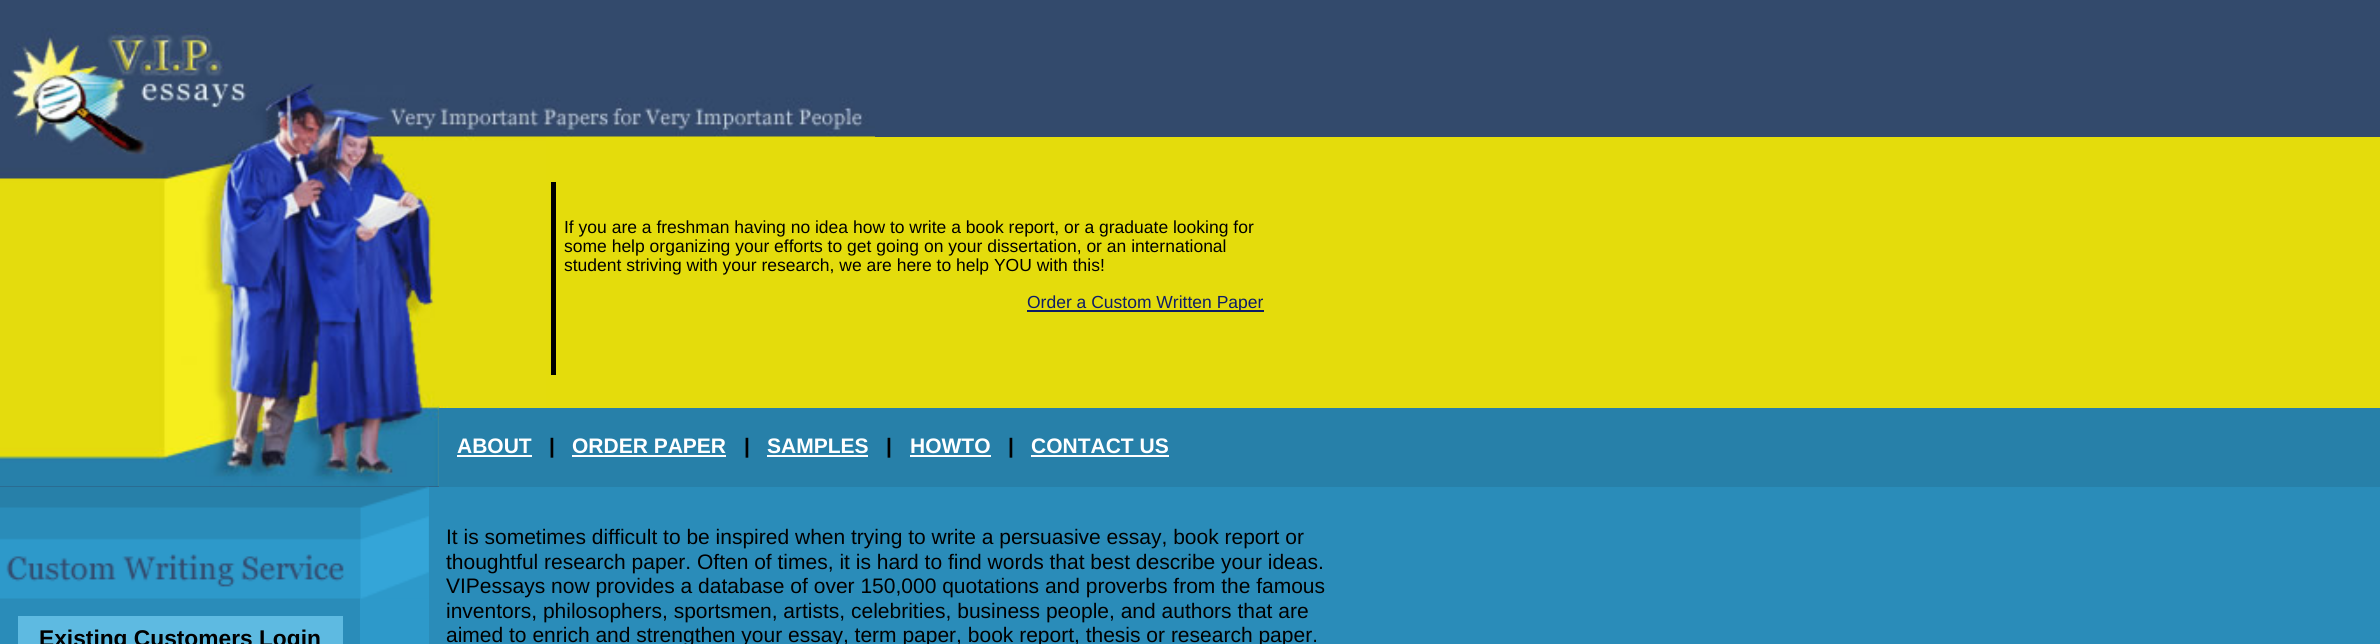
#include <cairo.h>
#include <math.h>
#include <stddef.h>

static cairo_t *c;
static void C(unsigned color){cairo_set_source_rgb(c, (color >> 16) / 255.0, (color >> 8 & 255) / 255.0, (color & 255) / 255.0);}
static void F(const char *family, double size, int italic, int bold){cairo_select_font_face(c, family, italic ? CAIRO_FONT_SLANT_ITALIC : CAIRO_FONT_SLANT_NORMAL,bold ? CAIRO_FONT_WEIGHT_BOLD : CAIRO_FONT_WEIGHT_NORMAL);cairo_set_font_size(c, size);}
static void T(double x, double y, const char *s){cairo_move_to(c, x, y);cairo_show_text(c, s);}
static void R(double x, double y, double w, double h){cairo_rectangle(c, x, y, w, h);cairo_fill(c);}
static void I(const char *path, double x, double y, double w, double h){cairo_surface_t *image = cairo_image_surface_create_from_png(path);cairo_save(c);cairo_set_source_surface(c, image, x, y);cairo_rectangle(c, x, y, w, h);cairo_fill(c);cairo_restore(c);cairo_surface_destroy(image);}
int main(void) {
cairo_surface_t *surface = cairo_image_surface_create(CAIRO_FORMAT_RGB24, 2380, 644);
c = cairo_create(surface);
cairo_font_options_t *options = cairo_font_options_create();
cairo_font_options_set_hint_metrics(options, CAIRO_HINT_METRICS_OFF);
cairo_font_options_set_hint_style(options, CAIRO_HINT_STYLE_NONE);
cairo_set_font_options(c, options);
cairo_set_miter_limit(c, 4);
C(0x2a8cb9);
cairo_paint(c);
C(0x2d99ca);
R(360,487,69,157);
C(0x334a6c);
R(0,0,2380,487);
I("1.png",0,28,875,459);
C(0xe4dc0c);
R(546,137,1834,271);
C(0x000000);
R(551,182,5,193);
F("Liberation Sans",17.5,0,0);
T(564,233,"If you are a freshman having no idea how to write a book report, or a graduate looking for");
T(564,252,"some help organizing your efforts to get going on your dissertation, or an international");
T(564,271,"student striving with your research, we are here to help YOU with this!");
C(0x0e1d66);
R(1027,310,237,2);
T(1027,308,"Order a Custom Written Paper");
C(0x2780a9);
R(439,408,1941,79);
F("Liberation Sans",21,0,1);
C(0xffffff);
T(457,453,"ABOUT");
R(457,455,75,2);
C(0x000000);
T(549,453,"|");
C(0xffffff);
T(572,453,"ORDER PAPER");
R(572,455,154,2);
C(0x000000);
T(744,453,"|");
C(0xffffff);
T(767,453,"SAMPLES");
R(767,455,101,2);
C(0x000000);
T(886,453,"|");
C(0xffffff);
T(910,453,"HOWTO");
R(910,455,81,2);
C(0x000000);
T(1008,453,"|");
C(0xffffff);
T(1031,453,"CONTACT US");
R(1031,455,138,2);
I("2.png",0,486,429,113);
C(0x5ebae1);
R(18,616,325,28);
F("Liberation Sans",22.75,0,1);
C(0x000000);
T(39,646,"Existing Customers Login");
F("Liberation Sans",21,0,0);
T(446,544,"It is sometimes difficult to be inspired when trying to write a persuasive essay, book report or");
T(446,569,"thoughtful research paper. Often of times, it is hard to find words that best describe your ideas.");
T(446,593,"VIPessays now provides a database of over 150,000 quotations and proverbs from the famous");
T(446,618,"inventors, philosophers, sportsmen, artists, celebrities, business people, and authors that are");
T(446,642,"aimed to enrich and strengthen your essay, term paper, book report, thesis or research paper.");
cairo_surface_write_to_png(surface, "o.png");
cairo_font_options_destroy(options);
cairo_destroy(c);
cairo_surface_destroy(surface);
return 0;
}
